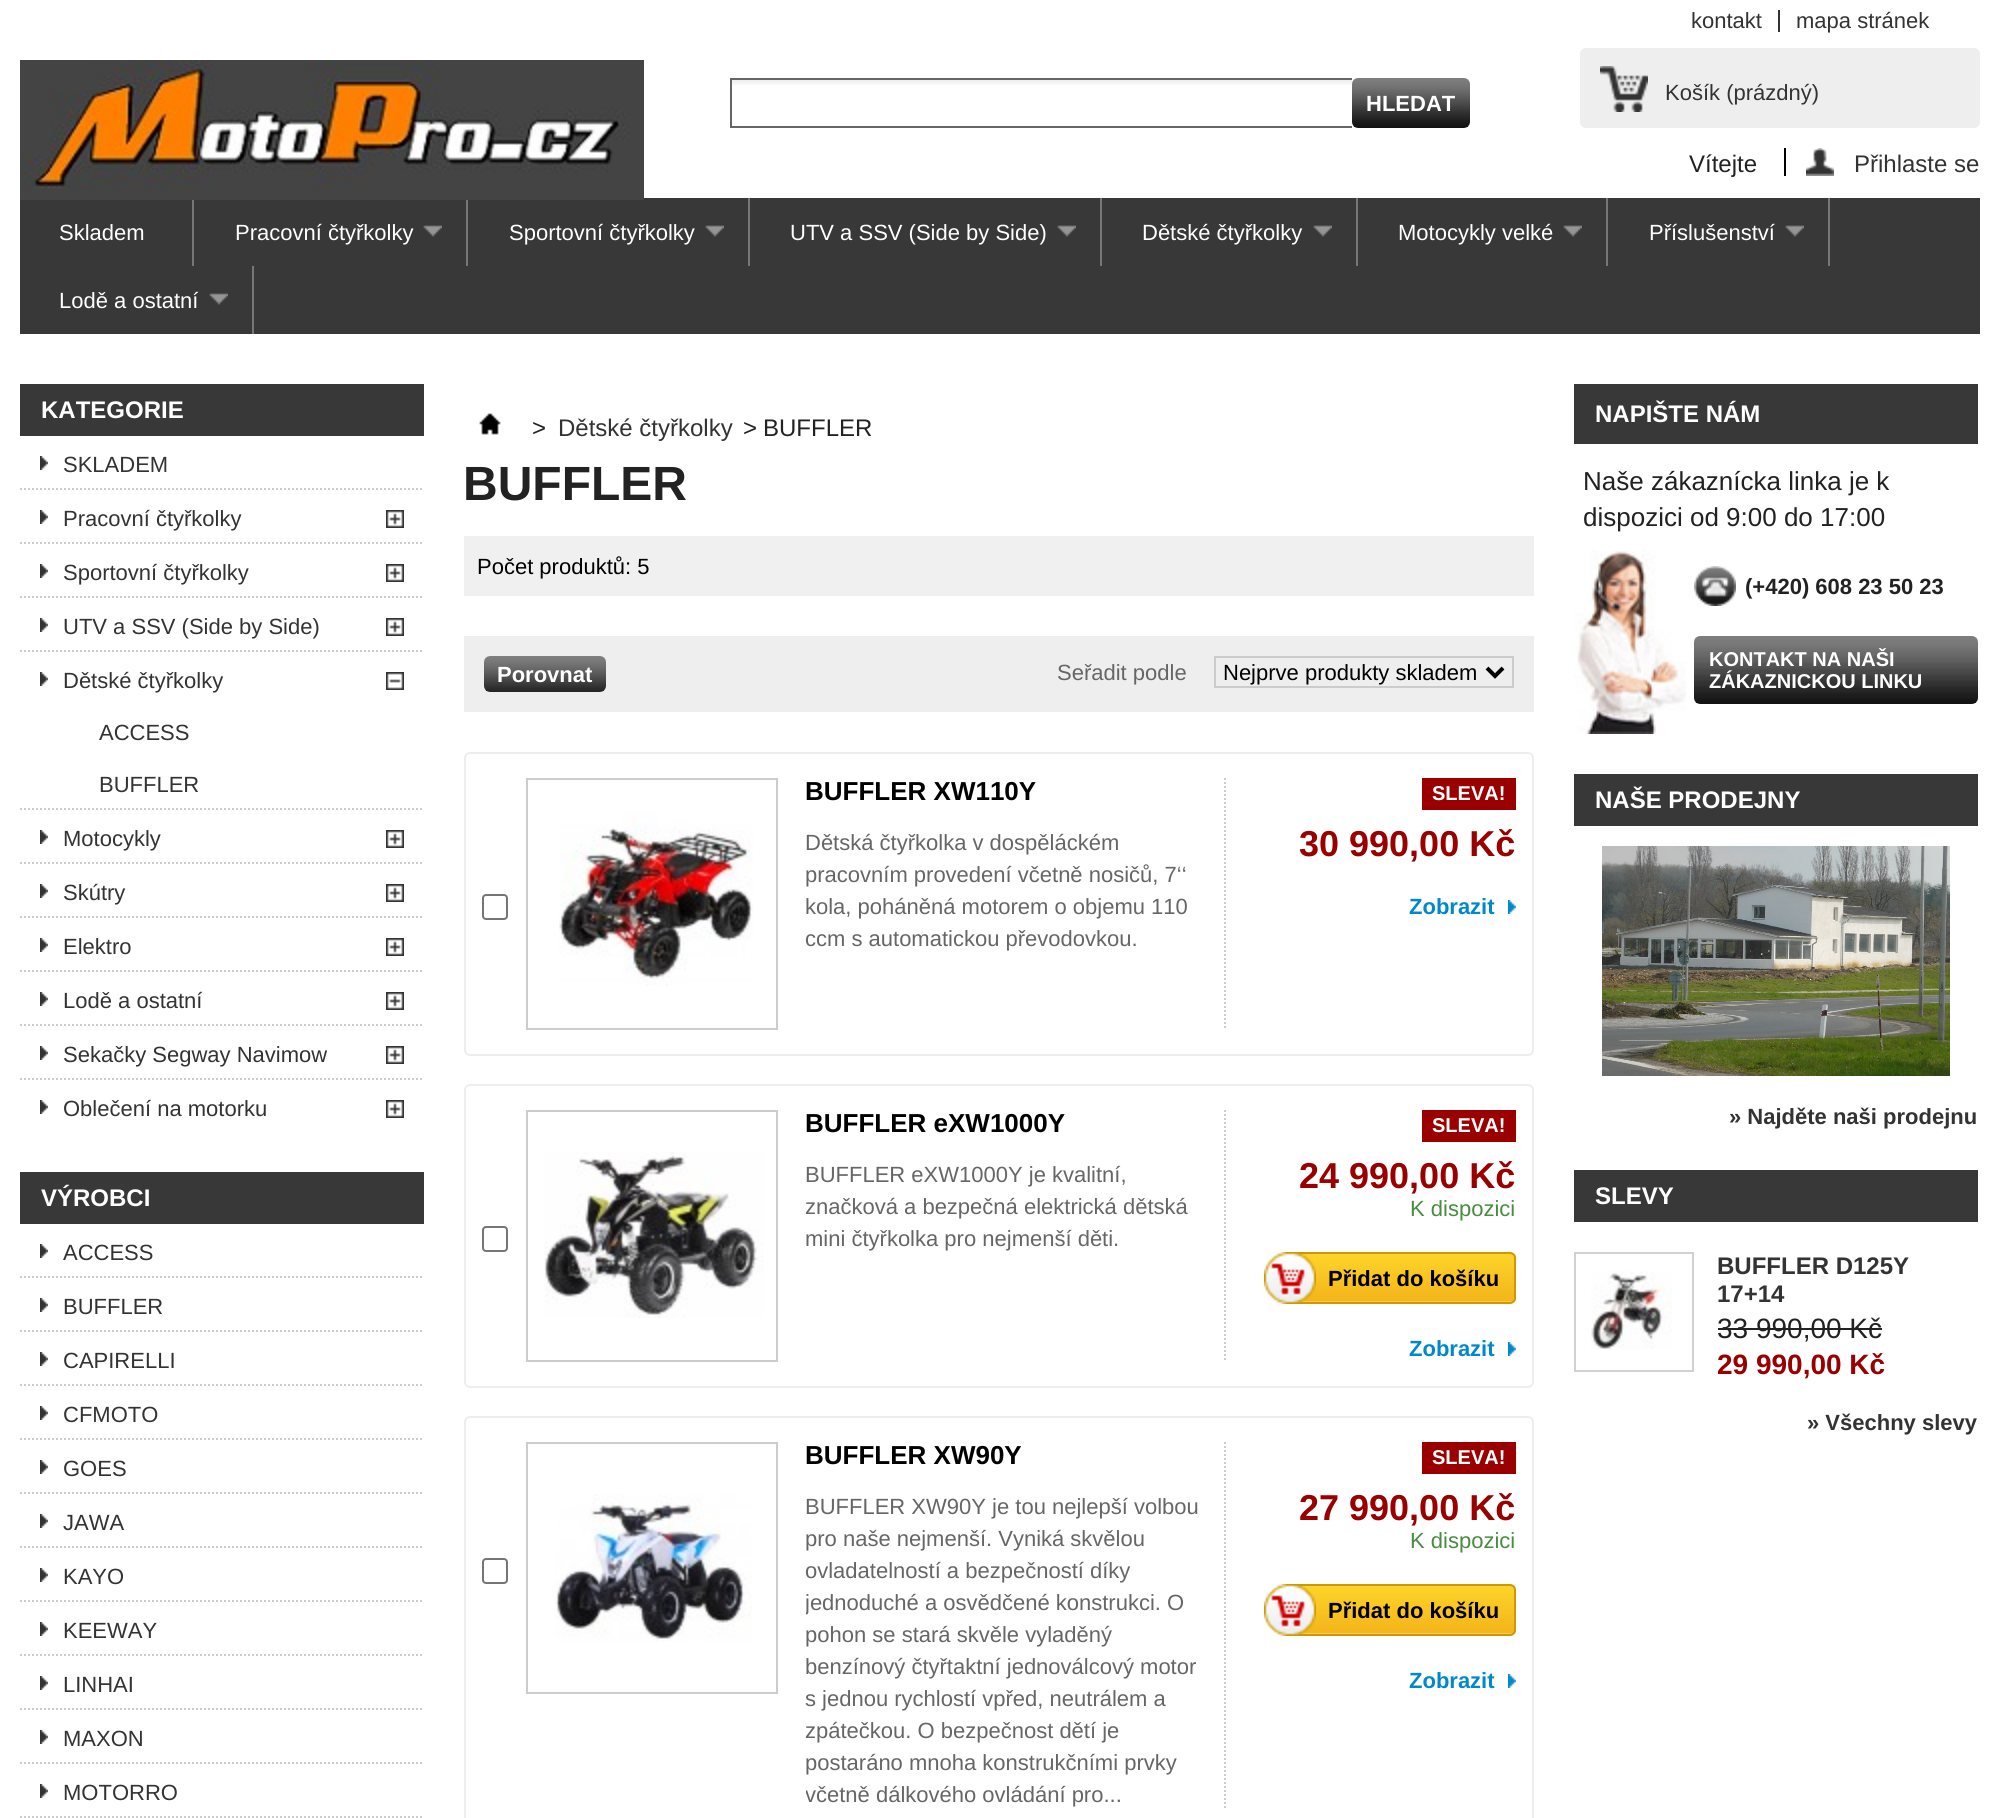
#include <cairo.h>
#include <math.h>
#include <stddef.h>

static cairo_t *c;
static void C(unsigned color){cairo_set_source_rgb(c, (color >> 16) / 255.0, (color >> 8 & 255) / 255.0, (color & 255) / 255.0);}
static void F(const char *family, double size, int italic, int bold){cairo_select_font_face(c, family, italic ? CAIRO_FONT_SLANT_ITALIC : CAIRO_FONT_SLANT_NORMAL,bold ? CAIRO_FONT_WEIGHT_BOLD : CAIRO_FONT_WEIGHT_NORMAL);cairo_set_font_size(c, size);}
static void T(double x, double y, const char *s){cairo_move_to(c, x, y);cairo_show_text(c, s);}
static void R(double x, double y, double w, double h){cairo_rectangle(c, x, y, w, h);cairo_fill(c);}
static void Q(double x, double y, double w, double h, double r){cairo_new_sub_path(c);cairo_arc(c, x + w - r, y + h - r, r, 0, M_PI / 2);cairo_arc(c, x + r, y + h - r, r, M_PI / 2, M_PI);cairo_arc(c, x + r, y + r, r, M_PI, 1.5 * M_PI);cairo_arc(c, x + w - r, y + r, r, 1.5 * M_PI, 2 * M_PI);cairo_close_path(c);}
static void I(const char *path, double x, double y, double w, double h){cairo_surface_t *image = cairo_image_surface_create_from_png(path);cairo_save(c);cairo_set_source_surface(c, image, x, y);cairo_rectangle(c, x, y, w, h);cairo_fill(c);cairo_restore(c);cairo_surface_destroy(image);}
int main(void) {
cairo_surface_t *surface = cairo_image_surface_create(CAIRO_FORMAT_RGB24, 1998, 1818);
c = cairo_create(surface);
cairo_font_options_t *options = cairo_font_options_create();
cairo_font_options_set_hint_metrics(options, CAIRO_HINT_METRICS_OFF);
cairo_font_options_set_hint_style(options, CAIRO_HINT_STYLE_NONE);
cairo_set_font_options(c, options);
cairo_set_miter_limit(c, 4);
C(0xffffff);
cairo_paint(c);
F("Liberation Sans",22,0,0);
C(0x333333);
T(1691,28,"kontakt");
R(1778,10,2,22);
T(1796,28,"mapa stránek");
I("1.png",732,80,620,5);
C(0x666666);
R(730,78,622,2);
R(730,126,622,2);
R(730,78,2,50);
I("2.png",1352,78,118,50);
F("Liberation Sans",22,0,1);
C(0xffffff);
T(1366,111,"HLEDAT");
C(0xeeeeee);
Q(1580,48,400,80,6);
cairo_fill(c);
I("3.png",1600,66,48,46);
F("Liberation Sans",22,0,0);
C(0x333333);
T(1665,100,"Košík (prázdný)");
F("Liberation Sans",24,0,0);
C(0x222222);
T(1689,172,"Vítejte");
I("4.png",1806,148,28,28);
C(0x000000);
R(1784,148,2,28);
C(0x333333);
T(1854,172,"Přihlaste se");
C(0x383838);
R(20,198,1960,136);
C(0x777777);
R(192,198,2,68);
F("Liberation Sans",22,0,0);
C(0xffffff);
T(59,240,"Skladem");
C(0x777777);
R(466,198,2,68);
C(0xffffff);
T(235,240,"Pracovní čtyřkolky");
I("5.png",423,225,19,12);
C(0x777777);
R(748,198,2,68);
C(0xffffff);
T(509,240,"Sportovní čtyřkolky");
I("5.png",705,225,19,12);
C(0x777777);
R(1100,198,2,68);
C(0xffffff);
T(790,240,"UTV a SSV (Side by Side)");
I("5.png",1057,225,19,12);
C(0x777777);
R(1356,198,2,68);
C(0xffffff);
T(1142,240,"Dětské čtyřkolky");
I("5.png",1313,225,19,12);
C(0x777777);
R(1606,198,2,68);
C(0xffffff);
T(1398,240,"Motocykly velké");
I("5.png",1563,225,19,12);
C(0x777777);
R(1828,198,2,68);
C(0xffffff);
T(1649,240,"Příslušenství");
I("5.png",1785,225,19,12);
C(0x777777);
R(252,266,2,68);
C(0xffffff);
T(59,308,"Lodě a ostatní");
I("5.png",209,293,19,12);
I("6.png",20,60,624,140);
C(0x383838);
R(20,384,404,52);
F("Liberation Sans",24,0,1);
C(0xffffff);
T(41,418,"KATEGORIE");
cairo_new_path(c);
cairo_move_to(c,20,489);
cairo_line_to(c,424,489);
C(0xcccccc);
cairo_set_dash(c,(double[]){2,2},2,0);
cairo_stroke(c);
I("7.png",40,456,8,14);
F("Liberation Sans",22,0,0);
C(0x333333);
T(63,472,"SKLADEM");
cairo_new_path(c);
cairo_move_to(c,20,543);
cairo_line_to(c,424,543);
C(0xcccccc);
cairo_stroke(c);
I("7.png",40,510,8,14);
C(0x333333);
T(63,526,"Pracovní čtyřkolky");
I("8.png",386,510,18,18);
cairo_new_path(c);
cairo_move_to(c,20,597);
cairo_line_to(c,424,597);
C(0xcccccc);
cairo_stroke(c);
I("7.png",40,564,8,14);
C(0x333333);
T(63,580,"Sportovní čtyřkolky");
I("8.png",386,564,18,18);
cairo_new_path(c);
cairo_move_to(c,20,651);
cairo_line_to(c,424,651);
C(0xcccccc);
cairo_stroke(c);
I("7.png",40,618,8,14);
C(0x333333);
T(63,634,"UTV a SSV (Side by Side)");
I("8.png",386,618,18,18);
cairo_new_path(c);
cairo_move_to(c,20,809);
cairo_line_to(c,424,809);
C(0xcccccc);
cairo_stroke(c);
I("7.png",40,672,8,14);
C(0x333333);
T(63,688,"Dětské čtyřkolky");
I("9.png",386,672,18,18);
T(99,740,"ACCESS");
T(99,792,"BUFFLER");
cairo_new_path(c);
cairo_move_to(c,20,863);
cairo_line_to(c,424,863);
C(0xcccccc);
cairo_stroke(c);
I("7.png",40,830,8,14);
C(0x333333);
T(63,846,"Motocykly");
I("8.png",386,830,18,18);
cairo_new_path(c);
cairo_move_to(c,20,917);
cairo_line_to(c,424,917);
C(0xcccccc);
cairo_stroke(c);
I("7.png",40,884,8,14);
C(0x333333);
T(63,900,"Skútry");
I("8.png",386,884,18,18);
cairo_new_path(c);
cairo_move_to(c,20,971);
cairo_line_to(c,424,971);
C(0xcccccc);
cairo_stroke(c);
I("7.png",40,938,8,14);
C(0x333333);
T(63,954,"Elektro");
I("8.png",386,938,18,18);
cairo_new_path(c);
cairo_move_to(c,20,1025);
cairo_line_to(c,424,1025);
C(0xcccccc);
cairo_stroke(c);
I("7.png",40,992,8,14);
C(0x333333);
T(63,1008,"Lodě a ostatní");
I("8.png",386,992,18,18);
cairo_new_path(c);
cairo_move_to(c,20,1079);
cairo_line_to(c,424,1079);
C(0xcccccc);
cairo_stroke(c);
I("7.png",40,1046,8,14);
C(0x333333);
T(63,1062,"Sekačky Segway Navimow");
I("8.png",386,1046,18,18);
I("7.png",40,1100,8,14);
T(63,1116,"Oblečení na motorku");
I("8.png",386,1100,18,18);
C(0x383838);
R(20,1172,404,52);
F("Liberation Sans",24,0,1);
C(0xffffff);
T(41,1206,"VÝROBCI");
cairo_new_path(c);
cairo_move_to(c,20,1277);
cairo_line_to(c,424,1277);
C(0xcccccc);
cairo_stroke(c);
I("7.png",40,1244,8,14);
F("Liberation Sans",22,0,0);
C(0x333333);
T(63,1260,"ACCESS");
cairo_new_path(c);
cairo_move_to(c,20,1331);
cairo_line_to(c,424,1331);
C(0xcccccc);
cairo_stroke(c);
I("7.png",40,1298,8,14);
C(0x333333);
T(63,1314,"BUFFLER");
cairo_new_path(c);
cairo_move_to(c,20,1385);
cairo_line_to(c,424,1385);
C(0xcccccc);
cairo_stroke(c);
I("7.png",40,1352,8,14);
C(0x333333);
T(63,1368,"CAPIRELLI");
cairo_new_path(c);
cairo_move_to(c,20,1439);
cairo_line_to(c,424,1439);
C(0xcccccc);
cairo_stroke(c);
I("7.png",40,1406,8,14);
C(0x333333);
T(63,1422,"CFMOTO");
cairo_new_path(c);
cairo_move_to(c,20,1493);
cairo_line_to(c,424,1493);
C(0xcccccc);
cairo_stroke(c);
I("7.png",40,1460,8,14);
C(0x333333);
T(63,1476,"GOES");
cairo_new_path(c);
cairo_move_to(c,20,1547);
cairo_line_to(c,424,1547);
C(0xcccccc);
cairo_stroke(c);
I("7.png",40,1514,8,14);
C(0x333333);
T(63,1530,"JAWA");
cairo_new_path(c);
cairo_move_to(c,20,1601);
cairo_line_to(c,424,1601);
C(0xcccccc);
cairo_stroke(c);
I("7.png",40,1568,8,14);
C(0x333333);
T(63,1584,"KAYO");
cairo_new_path(c);
cairo_move_to(c,20,1655);
cairo_line_to(c,424,1655);
C(0xcccccc);
cairo_stroke(c);
I("7.png",40,1622,8,14);
C(0x333333);
T(63,1638,"KEEWAY");
cairo_new_path(c);
cairo_move_to(c,20,1709);
cairo_line_to(c,424,1709);
C(0xcccccc);
cairo_stroke(c);
I("7.png",40,1676,8,14);
C(0x333333);
T(63,1692,"LINHAI");
cairo_new_path(c);
cairo_move_to(c,20,1763);
cairo_line_to(c,424,1763);
C(0xcccccc);
cairo_stroke(c);
I("7.png",40,1730,8,14);
C(0x333333);
T(63,1746,"MAXON");
cairo_new_path(c);
cairo_move_to(c,20,1817);
cairo_line_to(c,424,1817);
C(0xcccccc);
cairo_stroke(c);
I("7.png",40,1784,8,14);
C(0x333333);
T(63,1800,"MOTORRO");
I("10.png",479,413,22,22);
F("Liberation Sans",24,0,0);
C(0x222222);
T(532,436,">");
C(0x333333);
T(558,436,"Dětské čtyřkolky");
C(0x222222);
T(743,436,">");
T(763,436,"BUFFLER");
F("Liberation Sans",48,0,1);
T(463,500,"BUFFLER");
C(0xf0f0f0);
R(464,536,1070,60);
F("Liberation Sans",22,0,0);
C(0x000000);
T(477,574,"Počet produktů: 5");
C(0xeeeeee);
R(464,636,1070,76);
I("11.png",484,656,122,36);
F("Liberation Sans",22,0,1);
C(0xffffff);
T(497,682,"Porovnat");
F("Liberation Sans",22,0,0);
C(0x666666);
T(1057,680,"Seřadit podle");
cairo_rectangle(c,1215,657,298,30);
C(0xcccccc);
cairo_set_dash(c,NULL,0,0);
cairo_stroke(c);
cairo_new_path(c);
cairo_move_to(c,1487,668);
cairo_line_to(c,1495,676);
cairo_line_to(c,1503,668);
C(0x000000);
cairo_set_line_width(c,4);
cairo_stroke(c);
T(1223,680,"Nejprve produkty skladem");
Q(465,753,1068,302,5);
C(0xeeeeee);
cairo_set_line_width(c,2);
cairo_stroke(c);
Q(483,895,24,24,3);
C(0x767676);
cairo_stroke(c);
cairo_new_path(c);
cairo_move_to(c,1225,778);
cairo_line_to(c,1225,1030);
C(0xcccccc);
cairo_set_dash(c,(double[]){2,2},2,0);
cairo_stroke(c);
cairo_rectangle(c,527,779,250,250);
cairo_set_dash(c,NULL,0,0);
cairo_stroke(c);
I("12.png",559,812,194,174);
F("Liberation Sans",26,0,1);
C(0x000000);
T(805,800,"BUFFLER XW110Y");
F("Liberation Sans",22,0,0);
C(0x666666);
T(805,850,"Dětská čtyřkolka v dospěláckém");
T(805,882,"pracovním provedení včetně nosičů, 7‘‘");
T(805,914,"kola, poháněná motorem o objemu 110");
T(805,946,"ccm s automatickou převodovkou.");
C(0x9b0000);
R(1422,778,94,32);
F("Liberation Sans",20,0,1);
C(0xffffff);
T(1432,800,"SLEVA!");
F("Liberation Sans",36,0,1);
C(0x990000);
T(1299,856,"30 990,00 Kč");
I("13.png",1508,900,8,14);
F("Liberation Sans",22,0,1);
C(0x0088cc);
T(1409,914,"Zobrazit");
Q(465,1085,1068,302,5);
C(0xeeeeee);
cairo_stroke(c);
Q(483,1227,24,24,3);
C(0x767676);
cairo_stroke(c);
cairo_new_path(c);
cairo_move_to(c,1225,1110);
cairo_line_to(c,1225,1362);
C(0xcccccc);
cairo_set_dash(c,(double[]){2,2},2,0);
cairo_stroke(c);
cairo_rectangle(c,527,1111,250,250);
cairo_set_dash(c,NULL,0,0);
cairo_stroke(c);
I("14.png",544,1152,220,166);
F("Liberation Sans",26,0,1);
C(0x000000);
T(805,1132,"BUFFLER eXW1000Y");
F("Liberation Sans",22,0,0);
C(0x666666);
T(805,1182,"BUFFLER eXW1000Y je kvalitní,");
T(805,1214,"značková a bezpečná elektrická dětská");
T(805,1246,"mini čtyřkolka pro nejmenší děti.");
C(0x9b0000);
R(1422,1110,94,32);
F("Liberation Sans",20,0,1);
C(0xffffff);
T(1432,1132,"SLEVA!");
F("Liberation Sans",36,0,1);
C(0x990000);
T(1299,1188,"24 990,00 Kč");
F("Liberation Sans",22,0,0);
C(0x488c40);
T(1410,1216,"K dispozici");
I("15.png",1293,1254,223,49);
Q(1287,1253,228,50,5);
C(0xcc9900);
cairo_stroke(c);
I("16.png",1264,1252,52,52);
F("Liberation Sans",22,0,1);
C(0x000000);
T(1328,1286,"Přidat do košíku");
I("13.png",1508,1342,8,14);
C(0x0088cc);
T(1409,1356,"Zobrazit");
Q(465,1417,1068,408,5);
C(0xeeeeee);
cairo_stroke(c);
Q(483,1559,24,24,3);
C(0x767676);
cairo_stroke(c);
cairo_new_path(c);
cairo_move_to(c,1225,1442);
cairo_line_to(c,1225,1810);
C(0xcccccc);
cairo_set_dash(c,(double[]){2,2},2,0);
cairo_stroke(c);
cairo_rectangle(c,527,1443,250,250);
cairo_set_dash(c,NULL,0,0);
cairo_stroke(c);
I("17.png",555,1494,197,148);
F("Liberation Sans",26,0,1);
C(0x000000);
T(805,1464,"BUFFLER XW90Y");
F("Liberation Sans",22,0,0);
C(0x666666);
T(805,1514,"BUFFLER XW90Y je tou nejlepší volbou");
T(805,1546,"pro naše nejmenší. Vyniká skvělou");
T(805,1578,"ovladatelností a bezpečností díky");
cairo_save(c);
cairo_rectangle(c,806,1490,404,320);
cairo_clip(c);
T(805,1610,"jednoduché a osvědčené konstrukci. O");
cairo_restore(c);
T(805,1642,"pohon se stará skvěle vyladěný");
T(805,1674,"benzínový čtyřtaktní jednoválcový motor");
T(805,1706,"s jednou rychlostí vpřed, neutrálem a");
T(805,1738,"zpátečkou. O bezpečnost dětí je");
T(805,1770,"postaráno mnoha konstrukčními prvky");
cairo_save(c);
cairo_rectangle(c,806,1490,404,320);
cairo_clip(c);
T(805,1802,"včetně dálkového ovládání pro...");
cairo_restore(c);
C(0x9b0000);
R(1422,1442,94,32);
F("Liberation Sans",20,0,1);
C(0xffffff);
T(1432,1464,"SLEVA!");
F("Liberation Sans",36,0,1);
C(0x990000);
T(1299,1520,"27 990,00 Kč");
F("Liberation Sans",22,0,0);
C(0x488c40);
T(1410,1548,"K dispozici");
I("15.png",1293,1586,223,49);
Q(1287,1585,228,50,5);
C(0xcc9900);
cairo_stroke(c);
I("16.png",1264,1584,52,52);
F("Liberation Sans",22,0,1);
C(0x000000);
T(1328,1618,"Přidat do košíku");
I("13.png",1508,1674,8,14);
C(0x0088cc);
T(1409,1688,"Zobrazit");
C(0x383838);
R(1574,384,404,60);
F("Liberation Sans",24,0,1);
C(0xffffff);
T(1595,422,"NAPIŠTE NÁM");
I("18.png",1574,550,113,184);
F("Liberation Sans",26,0,0);
C(0x222222);
T(1583,490,"Naše zákaznícka linka je k");
T(1583,526,"dispozici od 9:00 do 17:00");
I("19.png",1694,566,42,40);
F("Liberation Sans",22,0,1);
T(1745,594,"(+420) 608 23 50 23");
I("20.png",1694,636,284,68);
F("Liberation Sans",20,0,1);
C(0xffffff);
T(1709,666,"KONTAKT NA NAŠI");
T(1709,688,"ZÁKAZNICKOU LINKU");
C(0x383838);
R(1574,774,404,52);
F("Liberation Sans",24,0,1);
C(0xffffff);
T(1595,808,"NAŠE PRODEJNY");
I("21.png",1602,846,348,230);
F("Liberation Sans",22,0,1);
C(0x333333);
T(1729,1124,"» Najděte naši prodejnu");
C(0x383838);
R(1574,1170,404,52);
F("Liberation Sans",24,0,1);
C(0xffffff);
T(1595,1204,"SLEVY");
cairo_rectangle(c,1575,1253,118,118);
C(0xd1d1d1);
cairo_stroke(c);
I("22.png",1591,1271,81,79);
C(0x333333);
T(1717,1274,"BUFFLER D125Y");
T(1717,1302,"17+14");
F("Liberation Sans",28,0,0);
C(0x222222);
T(1717,1338,"33 990,00 Kč");
R(1718,1328,164,2);
F("Liberation Sans",28,0,1);
C(0x990000);
T(1717,1374,"29 990,00 Kč");
F("Liberation Sans",22,0,1);
C(0x333333);
T(1807,1430,"» Všechny slevy");
cairo_surface_write_to_png(surface, "o.png");
cairo_font_options_destroy(options);
cairo_destroy(c);
cairo_surface_destroy(surface);
return 0;
}
